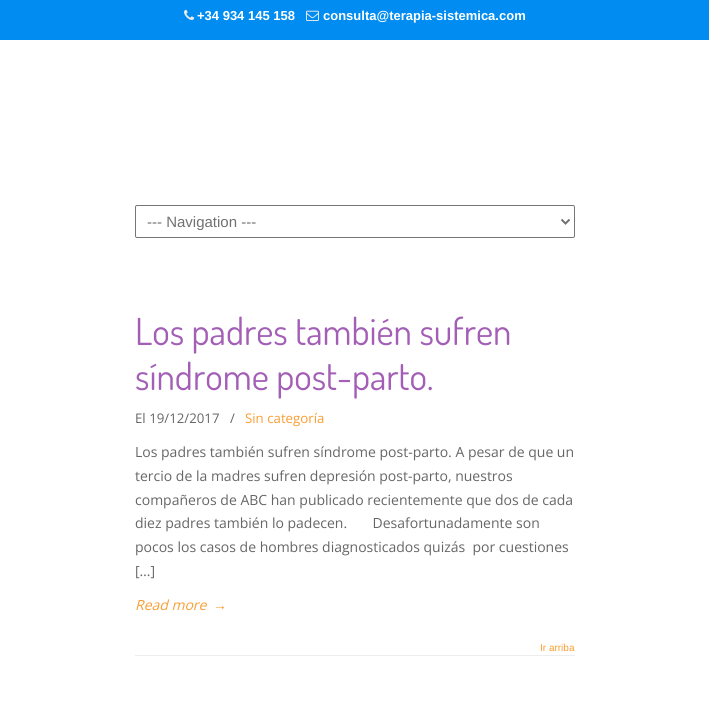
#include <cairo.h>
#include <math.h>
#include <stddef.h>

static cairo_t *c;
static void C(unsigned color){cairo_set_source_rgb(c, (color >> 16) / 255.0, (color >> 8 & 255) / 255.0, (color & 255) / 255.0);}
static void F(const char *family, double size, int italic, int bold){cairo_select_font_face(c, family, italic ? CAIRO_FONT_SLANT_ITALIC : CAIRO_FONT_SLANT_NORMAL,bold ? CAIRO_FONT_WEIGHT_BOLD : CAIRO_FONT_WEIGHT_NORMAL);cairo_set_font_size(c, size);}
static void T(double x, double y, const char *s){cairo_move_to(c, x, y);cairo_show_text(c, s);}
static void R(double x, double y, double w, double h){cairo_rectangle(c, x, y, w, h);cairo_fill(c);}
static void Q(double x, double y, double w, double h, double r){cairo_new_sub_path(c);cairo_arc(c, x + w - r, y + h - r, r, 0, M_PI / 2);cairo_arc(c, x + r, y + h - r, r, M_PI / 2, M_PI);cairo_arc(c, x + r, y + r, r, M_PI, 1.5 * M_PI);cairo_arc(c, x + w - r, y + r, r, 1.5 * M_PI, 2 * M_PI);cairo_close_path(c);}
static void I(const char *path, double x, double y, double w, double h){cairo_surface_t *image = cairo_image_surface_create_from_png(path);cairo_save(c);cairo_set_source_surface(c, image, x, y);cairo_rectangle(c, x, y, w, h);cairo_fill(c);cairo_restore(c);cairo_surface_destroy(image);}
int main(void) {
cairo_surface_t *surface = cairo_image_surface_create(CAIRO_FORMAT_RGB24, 709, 710);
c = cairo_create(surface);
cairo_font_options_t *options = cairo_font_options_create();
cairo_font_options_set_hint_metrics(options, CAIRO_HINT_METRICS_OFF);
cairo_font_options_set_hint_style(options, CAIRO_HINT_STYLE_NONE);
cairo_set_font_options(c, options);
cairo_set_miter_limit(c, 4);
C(0xffffff);
cairo_paint(c);
C(0x008cf0);
R(0,0,709,40);
I("1.png",184,9,11,11);
F("Liberation Sans",13,0,1);
C(0xffffff);
T(197,20,"+34 934 145 158");
I("2.png",306,10,13,11);
T(323,20,"consulta@terapia-sistemica.com");
Q(135.5,205.5,439,32,1.5);
C(0x767676);
cairo_set_line_width(c,1);
cairo_stroke(c);
cairo_new_path(c);
cairo_move_to(c,561.5,219.5);
cairo_line_to(c,565.5,223.5);
cairo_line_to(c,569.5,219.5);
C(0x717171);
cairo_set_line_width(c,2);
cairo_stroke(c);
F("Liberation Sans",15,0,0);
T(147,227,"--- Navigation ---");
F("Dosis",37.25,0,0);
C(0xa35eb5);
T(135,345,"Los padres también sufren");
T(135,390,"síndrome post-parto.");
F("Open Sans",13.25,0,0);
C(0x666666);
T(135,423,"El 19/12/2017");
T(230,423,"/");
C(0xf99e32);
T(245,423,"Sin categoría");
F("Open Sans",14,0,0);
C(0x666666);
T(135,457,"Los padres también sufren síndrome post-parto. A pesar de que un");
T(135,481,"tercio de la madres sufren depresión post-parto, nuestros");
T(135,505,"compañeros de ABC han publicado recientemente que dos de cada");
T(135,528,"diez padres también lo padecen.       Desafortunadamente son");
T(135,552,"pocos los casos de hombres diagnosticados quizás  por cuestiones");
T(135,576,"[…]");
F("Open Sans",14,1,0);
C(0xf99e32);
T(135,610,"Read more");
F("Liberation Serif",14,0,0);
T(213,610,"→");
C(0xededed);
R(135,655,440,1);
F("Liberation Sans",10,0,0);
C(0xf99e32);
T(540,651,"Ir arriba");
cairo_surface_write_to_png(surface, "o.png");
cairo_font_options_destroy(options);
cairo_destroy(c);
cairo_surface_destroy(surface);
return 0;
}
